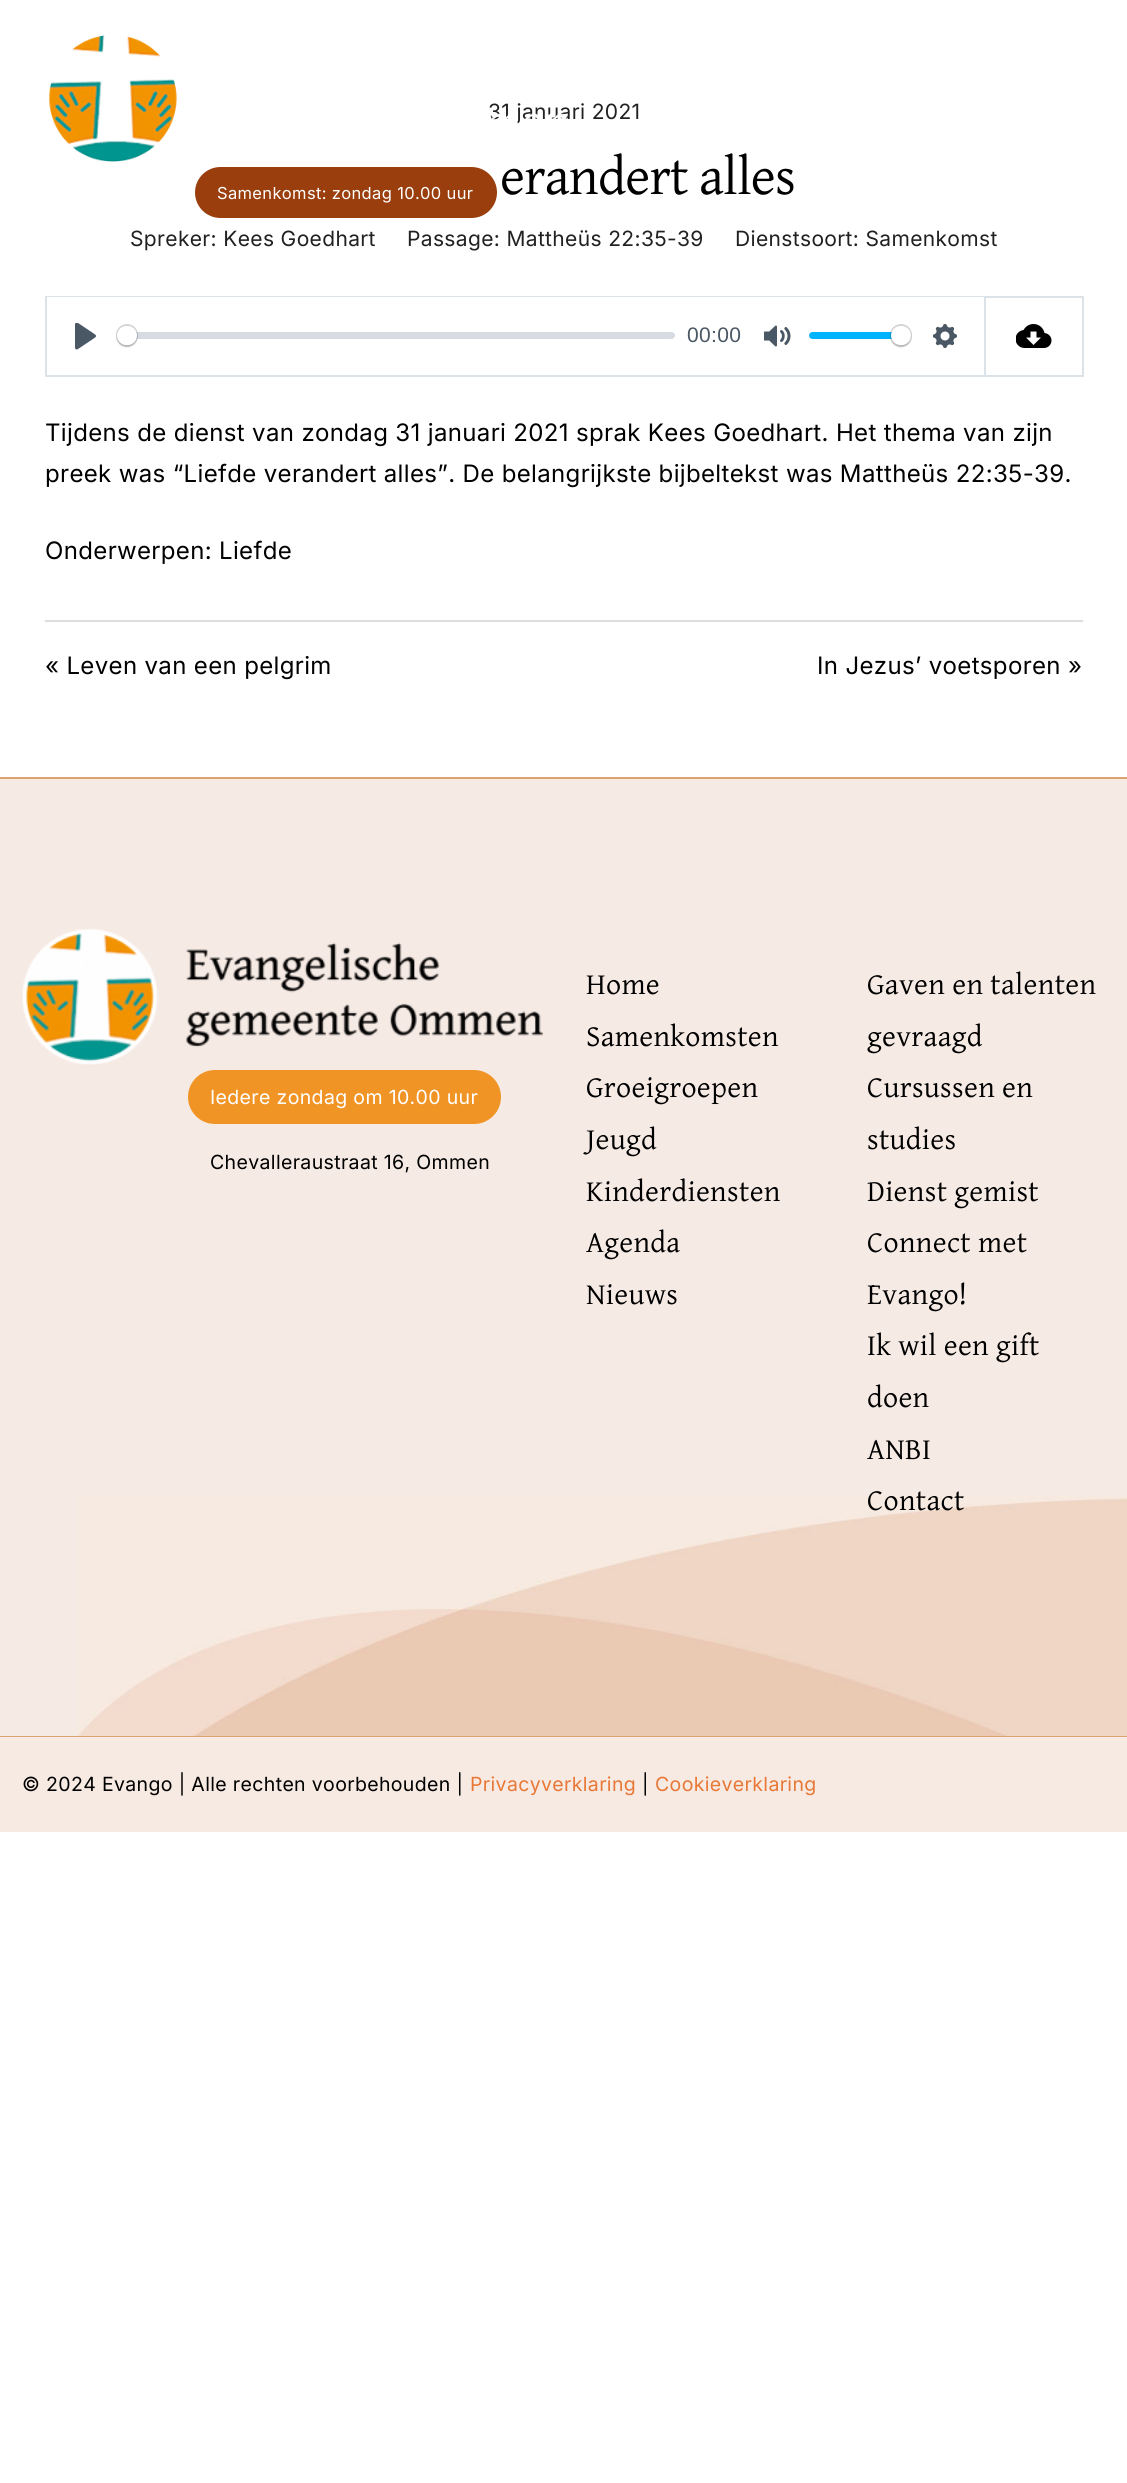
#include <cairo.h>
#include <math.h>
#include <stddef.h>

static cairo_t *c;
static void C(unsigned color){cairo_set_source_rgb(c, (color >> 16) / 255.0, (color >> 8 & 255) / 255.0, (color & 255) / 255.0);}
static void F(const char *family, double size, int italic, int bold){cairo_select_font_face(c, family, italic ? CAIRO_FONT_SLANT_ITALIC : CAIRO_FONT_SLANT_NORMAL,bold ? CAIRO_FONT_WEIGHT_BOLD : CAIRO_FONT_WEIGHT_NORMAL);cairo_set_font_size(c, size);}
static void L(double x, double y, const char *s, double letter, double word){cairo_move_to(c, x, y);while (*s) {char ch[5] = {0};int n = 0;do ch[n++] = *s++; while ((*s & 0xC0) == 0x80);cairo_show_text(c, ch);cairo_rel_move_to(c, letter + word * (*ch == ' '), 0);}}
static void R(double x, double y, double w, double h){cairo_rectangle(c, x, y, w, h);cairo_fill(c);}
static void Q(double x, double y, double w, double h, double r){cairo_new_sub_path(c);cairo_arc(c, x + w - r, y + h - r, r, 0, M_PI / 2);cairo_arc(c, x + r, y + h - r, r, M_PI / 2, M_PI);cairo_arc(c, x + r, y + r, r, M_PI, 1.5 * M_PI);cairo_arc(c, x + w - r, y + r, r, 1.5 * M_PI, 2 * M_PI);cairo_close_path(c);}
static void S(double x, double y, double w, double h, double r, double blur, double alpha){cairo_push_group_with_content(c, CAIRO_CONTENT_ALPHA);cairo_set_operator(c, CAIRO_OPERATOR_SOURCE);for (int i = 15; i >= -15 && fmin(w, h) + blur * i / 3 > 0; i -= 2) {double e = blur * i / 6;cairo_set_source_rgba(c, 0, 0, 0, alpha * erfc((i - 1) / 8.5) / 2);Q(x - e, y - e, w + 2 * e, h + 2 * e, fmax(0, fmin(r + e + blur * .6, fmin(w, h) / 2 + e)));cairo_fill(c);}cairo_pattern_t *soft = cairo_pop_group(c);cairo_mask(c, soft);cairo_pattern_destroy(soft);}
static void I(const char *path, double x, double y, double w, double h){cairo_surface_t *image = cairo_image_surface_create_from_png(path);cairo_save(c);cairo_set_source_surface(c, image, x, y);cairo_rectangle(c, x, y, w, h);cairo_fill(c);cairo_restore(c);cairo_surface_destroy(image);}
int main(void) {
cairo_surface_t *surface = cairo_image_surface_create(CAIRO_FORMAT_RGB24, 1127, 2483);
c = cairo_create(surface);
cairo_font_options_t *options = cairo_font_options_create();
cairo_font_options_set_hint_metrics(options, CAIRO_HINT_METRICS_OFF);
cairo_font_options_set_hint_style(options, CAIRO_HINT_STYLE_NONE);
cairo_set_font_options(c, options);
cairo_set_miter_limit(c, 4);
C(0xffffff);
cairo_paint(c);
F("Inter",21,0,0);
C(0x212121);
L(488,119,"31 januari 2021",.35,0);
F("Gentium Plus",54,0,0);
C(0x000000);
L(500,194,"erandert alles",-.75,0);
F("Inter",21,0,0);
C(0x212121);
L(130,246,"Spreker: Kees Goedhart",.35,0);
L(407,246,"Passage: Mattheüs 22:35-39",.35,0);
L(735,246,"Dienstsoort: Samenkomst",.35,0);
cairo_rectangle(c,46,297,939,79);
C(0xdbe3e8);
cairo_stroke(c);
C(0xffffff);
R(47,297,937,1);
I("1.png",75,323,21,27);
cairo_set_source_rgba(c,0.757,0.788,0.82,0.66);
Q(117,332,558,7,3.5);
cairo_fill(c);
Q(117,325,20,21,10);
cairo_set_source_rgba(c,0.137,0.161,0.184,0.2);
cairo_stroke(c);
C(0x000000);
S(117,327,20,20,10,1,.15);
C(0xffffff);
Q(117,326,20,19,9.5);
cairo_fill(c);
F("Liberation Sans",21,0,0);
C(0x4a5764);
L(687,342,"00:00",.35,0);
I("2.png",764,325,27,22);
C(0x00b3ff);
Q(809,332,102,7,3.5);
cairo_fill(c);
Q(891,325,20,21,10);
cairo_set_source_rgba(c,0.137,0.161,0.184,0.2);
cairo_stroke(c);
C(0x000000);
S(891,327,20,20,10,1,.15);
C(0xffffff);
Q(891,326,20,19,9.5);
cairo_fill(c);
I("3.png",933,324,24,24);
C(0xdbe3e8);
R(986,296,97,2);
R(1082,296,2,81);
R(986,375,97,2);
I("4.png",1016,324,36,24);
F("Inter",24,0,0);
C(0x000000);
L(45,441,"Tijdens de dienst van zondag 31 januari 2021 sprak Kees Goedhart. Het thema van zijn",.35,0);
L(45,482,"preek was “Liefde verandert alles”. De belangrijkste bijbeltekst was Mattheüs 22:35-39.",.35,0);
L(45,559,"Onderwerpen: Liefde",.35,0);
C(0xdddddd);
R(45,620,1038,2);
C(0x000000);
L(45,674,"« Leven van een pelgrim",.35,0);
L(817,674,"In Jezus’ voetsporen »",.35,0);
I("5.png",49,35,518,127);
C(0x993e0c);
Q(195,167,302,51,25.5);
cairo_fill(c);
F("Inter",16.5,0,0);
C(0xffffff);
L(217,199,"Samenkomst: zondag 10.00 uur",.35,0);
C(0xf6eae4);
R(0,779,1127,957);
I("6.png",78,1495,1049,241);
C(0xdca26f);
R(0,777,1127,2);
R(0,1736,1127,1);
I("7.png",22,929,521,136);
C(0xf09425);
Q(188,1070,313,54,27);
cairo_fill(c);
F("Inter",19.5,0,0);
C(0xffffff);
L(210,1104,"Iedere zondag om 10.00 uur",.35,0);
C(0x000000);
L(210,1169,"Chevalleraustraat 16, Ommen",.35,0);
F("Gentium Plus",30,0,0);
L(586,994,"Home",.35,0);
L(586,1046,"Samenkomsten",.35,0);
L(586,1097,"Groeigroepen",.35,0);
L(586,1149,"Jeugd",.35,0);
L(586,1201,"Kinderdiensten",.35,0);
L(586,1252,"Agenda",.35,0);
L(586,1304,"Nieuws",.35,0);
L(867,994,"Gaven en talenten",.35,0);
L(867,1046,"gevraagd",.35,0);
L(867,1097,"Cursussen en",.35,0);
L(867,1149,"studies",.35,0);
L(867,1201,"Dienst gemist",.35,0);
L(867,1252,"Connect met",.35,0);
L(867,1304,"Evango!",.35,0);
L(867,1355,"Ik wil een gift",.35,0);
L(867,1407,"doen",.35,0);
L(867,1459,"ANBI",.35,0);
L(867,1510,"Contact",.35,0);
C(0xf7eae2);
R(0,1737,1127,95);
F("Inter",19.5,0,0);
C(0x000000);
L(22,1791,"© 2024 Evango | Alle rechten voorbehouden |",.35,0);
C(0xe87837);
L(470,1791,"Privacyverklaring",.35,0);
C(0x000000);
L(642,1791,"|",.35,0);
C(0xe87837);
L(655,1791,"Cookieverklaring",.35,0);
cairo_surface_write_to_png(surface, "o.png");
cairo_font_options_destroy(options);
cairo_destroy(c);
cairo_surface_destroy(surface);
return 0;
}
